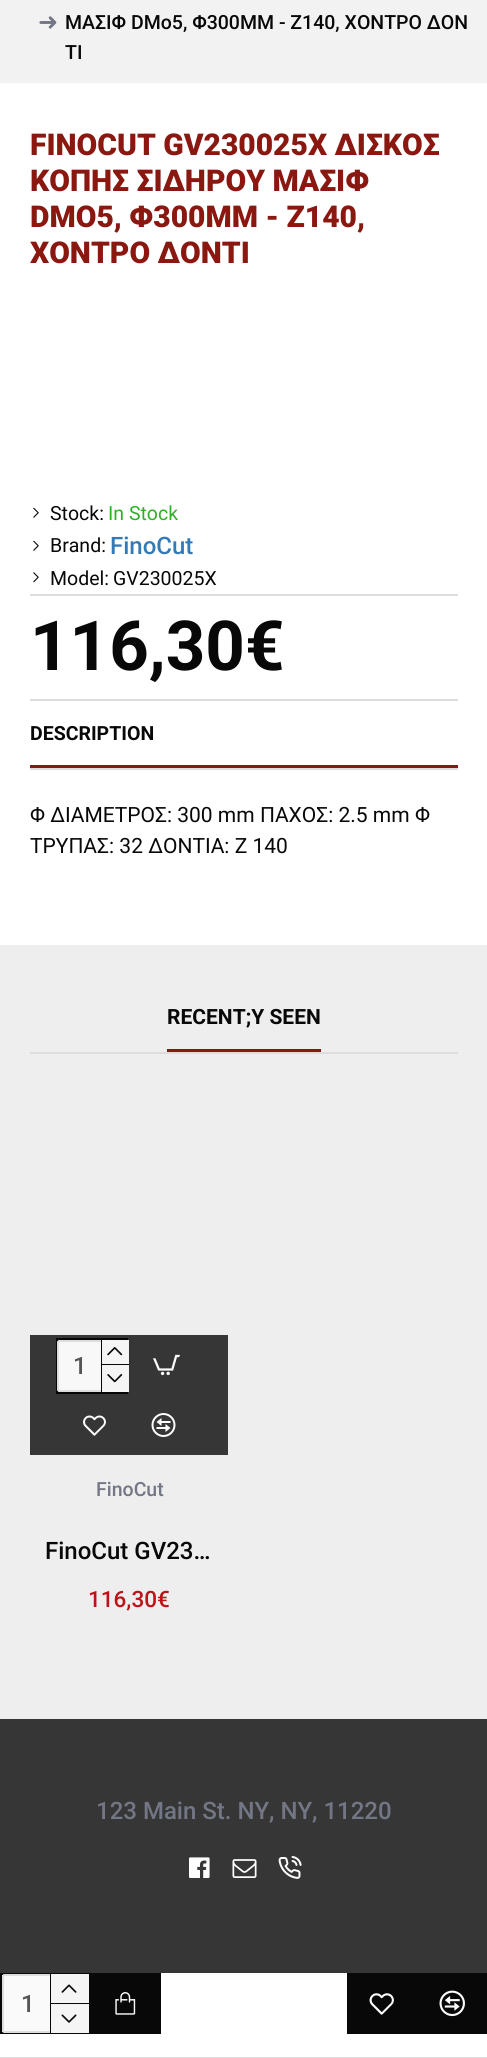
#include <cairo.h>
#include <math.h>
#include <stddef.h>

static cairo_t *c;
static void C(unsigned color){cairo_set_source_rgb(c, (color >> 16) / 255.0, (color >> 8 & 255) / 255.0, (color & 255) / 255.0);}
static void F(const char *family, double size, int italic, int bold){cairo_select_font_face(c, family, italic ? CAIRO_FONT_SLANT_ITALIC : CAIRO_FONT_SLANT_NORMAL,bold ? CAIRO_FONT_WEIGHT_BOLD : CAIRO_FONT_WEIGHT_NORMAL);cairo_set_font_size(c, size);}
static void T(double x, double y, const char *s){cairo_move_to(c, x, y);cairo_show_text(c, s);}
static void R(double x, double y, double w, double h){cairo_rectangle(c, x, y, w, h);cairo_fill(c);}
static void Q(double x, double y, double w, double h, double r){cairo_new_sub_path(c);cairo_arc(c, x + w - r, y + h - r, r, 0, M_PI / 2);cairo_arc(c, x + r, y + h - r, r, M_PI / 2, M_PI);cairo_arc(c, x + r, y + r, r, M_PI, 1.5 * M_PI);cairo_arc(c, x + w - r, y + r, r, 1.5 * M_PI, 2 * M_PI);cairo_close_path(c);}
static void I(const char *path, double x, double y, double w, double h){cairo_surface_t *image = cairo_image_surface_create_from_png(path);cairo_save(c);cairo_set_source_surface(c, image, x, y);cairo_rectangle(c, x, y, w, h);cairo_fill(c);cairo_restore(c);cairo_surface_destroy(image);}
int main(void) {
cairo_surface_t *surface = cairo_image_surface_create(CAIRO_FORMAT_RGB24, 487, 2058);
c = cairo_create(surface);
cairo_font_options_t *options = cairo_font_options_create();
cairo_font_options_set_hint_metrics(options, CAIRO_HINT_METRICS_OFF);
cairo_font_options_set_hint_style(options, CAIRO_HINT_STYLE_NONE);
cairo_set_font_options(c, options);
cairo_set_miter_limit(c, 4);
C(0xffffff);
cairo_paint(c);
C(0xf2f2f2);
R(0,0,487,83);
F("DejaVu Sans",24,0,0);
C(0x737785);
T(38,30,"➜");
F("Roboto Medium",19.5,0,0);
C(0x080808);
T(65,29,"ΜΑΣΙΦ DMo5, Φ300MM - Z140, ΧΟΝΤΡΟ ΔΟΝ");
T(65,59,"ΤΙ");
F("Roboto Black",30,0,0);
C(0x8a1811);
T(30,155,"FINOCUT GV230025X ΔΙΣΚΟΣ");
T(30,191,"ΚΟΠΗΣ ΣΙΔΗΡΟΥ ΜΑΣΙΦ");
T(30,227,"DMO5, Φ300MM - Z140,");
T(30,263,"ΧΟΝΤΡΟ ΔΟΝΤΙ");
C(0xdddddd);
R(30,699,428,2);
R(30,594,428,2);
I("1.png",33,507,6,11);
F("Roboto",19.5,0,0);
C(0x080808);
T(50,520,"Stock:");
C(0x30b025);
T(108,520,"In Stock");
I("1.png",33,540,6,11);
C(0x080808);
T(50,552,"Brand:");
F("Roboto Medium",24,0,0);
C(0x337ab7);
T(110,554,"FinoCut");
I("2.png",33,572,6,11);
F("Roboto",19.5,0,0);
C(0x080808);
T(50,585,"Model:");
T(113,585,"GV230025X");
F("Roboto",69,0,1);
T(30,670,"116,30€");
C(0xdddddd);
R(0,2057,487,1);
cairo_rectangle(c,1,1974,88,59);
C(0x080808);
cairo_stroke(c);
cairo_set_source_rgba(c,0.98,0.98,0.98,0.99);
Q(2,1974,87,59,3);
cairo_fill(c);
Q(3,1975,85,57,2);
cairo_set_source_rgba(c,0.867,0.867,0.867,0.99);
cairo_stroke(c);
F("Roboto Medium",24,0,0);
C(0x555555);
T(21,2012,"1");
cairo_set_source_rgba(c,0.024,0.024,0.024,0.99);
R(50,1974,2,59);
cairo_set_source_rgba(c,0.961,0.961,0.961,0.99);
R(51,1974,38,30);
cairo_set_source_rgba(c,0.024,0.024,0.024,0.99);
R(51,2003,38,2);
I("3.png",61,1984,16,9);
cairo_set_source_rgba(c,0.961,0.961,0.961,0.99);
R(51,2004,38,29);
I("4.png",61,2014,16,9);
C(0x080808);
R(90,1973,71,61);
I("5.png",115,1992,21,23);
R(347,1973,140,61);
I("6.png",369,1993,25,22);
I("7.png",439,1990,26,27);
C(0xdddddd);
R(30,768,428,2);
C(0x8a1811);
R(30,765,428,3);
F("Roboto",19.5,0,1);
C(0x080808);
T(30,740,"DESCRIPTION");
F("Roboto",21,0,0);
T(30,822,"Φ ΔΙΑΜΕΤΡΟΣ: 300 mm ΠΑΧΟΣ: 2.5 mm Φ");
T(30,853,"ΤΡΥΠΑΣ: 32 ΔΟΝΤΙΑ: Z 140");
C(0xeeeeee);
R(0,945,487,774);
C(0xdddddd);
R(30,1052,428,2);
C(0x8a1811);
R(167,1049,154,3);
F("Roboto",21,0,1);
C(0x080808);
T(167,1024,"RECENT;Y SEEN");
C(0x363636);
R(30,1335,198,120);
cairo_rectangle(c,57,1339,73,54);
C(0x060606);
cairo_stroke(c);
cairo_set_source_rgba(c,0.98,0.98,0.98,0.99);
Q(57,1340,72,52,3);
cairo_fill(c);
Q(58,1341,70,50,2);
cairo_set_source_rgba(c,0.867,0.867,0.867,0.99);
cairo_stroke(c);
F("Roboto Medium",24,0,0);
C(0x555555);
T(73,1374,"1");
cairo_set_source_rgba(c,0.024,0.024,0.024,0.99);
R(101,1340,2,52);
cairo_set_source_rgba(c,0.204,0.204,0.204,0.99);
R(128,1338,3,56);
cairo_set_source_rgba(c,0.961,0.961,0.961,0.99);
R(102,1340,27,25);
cairo_set_source_rgba(c,0.024,0.024,0.024,0.99);
R(102,1364,27,2);
I("8.png",107,1347,16,9);
cairo_set_source_rgba(c,0.961,0.961,0.961,0.99);
R(102,1365,27,27);
I("9.png",107,1374,16,9);
I("10.png",153,1354,27,22);
I("11.png",83,1415,23,21);
I("12.png",151,1413,25,24);
F("Roboto Medium",19.5,0,0);
C(0x737785);
T(96,1496,"FinoCut");
F("Roboto Medium",24,0,0);
C(0x080808);
T(45,1559,"FinoCut GV23…");
F("Roboto Medium",22.5,0,0);
C(0xbc1218);
T(88,1607,"116,30€");
C(0x363636);
R(0,1719,487,254);
F("Roboto Medium",24,0,0);
C(0x737785);
T(96,1819,"123 Main St. NY, NY, 11220");
I("13.png",189,1857,21,21);
I("14.png",232,1859,25,19);
I("15.png",278,1856,24,23);
cairo_surface_write_to_png(surface, "o.png");
cairo_font_options_destroy(options);
cairo_destroy(c);
cairo_surface_destroy(surface);
return 0;
}
